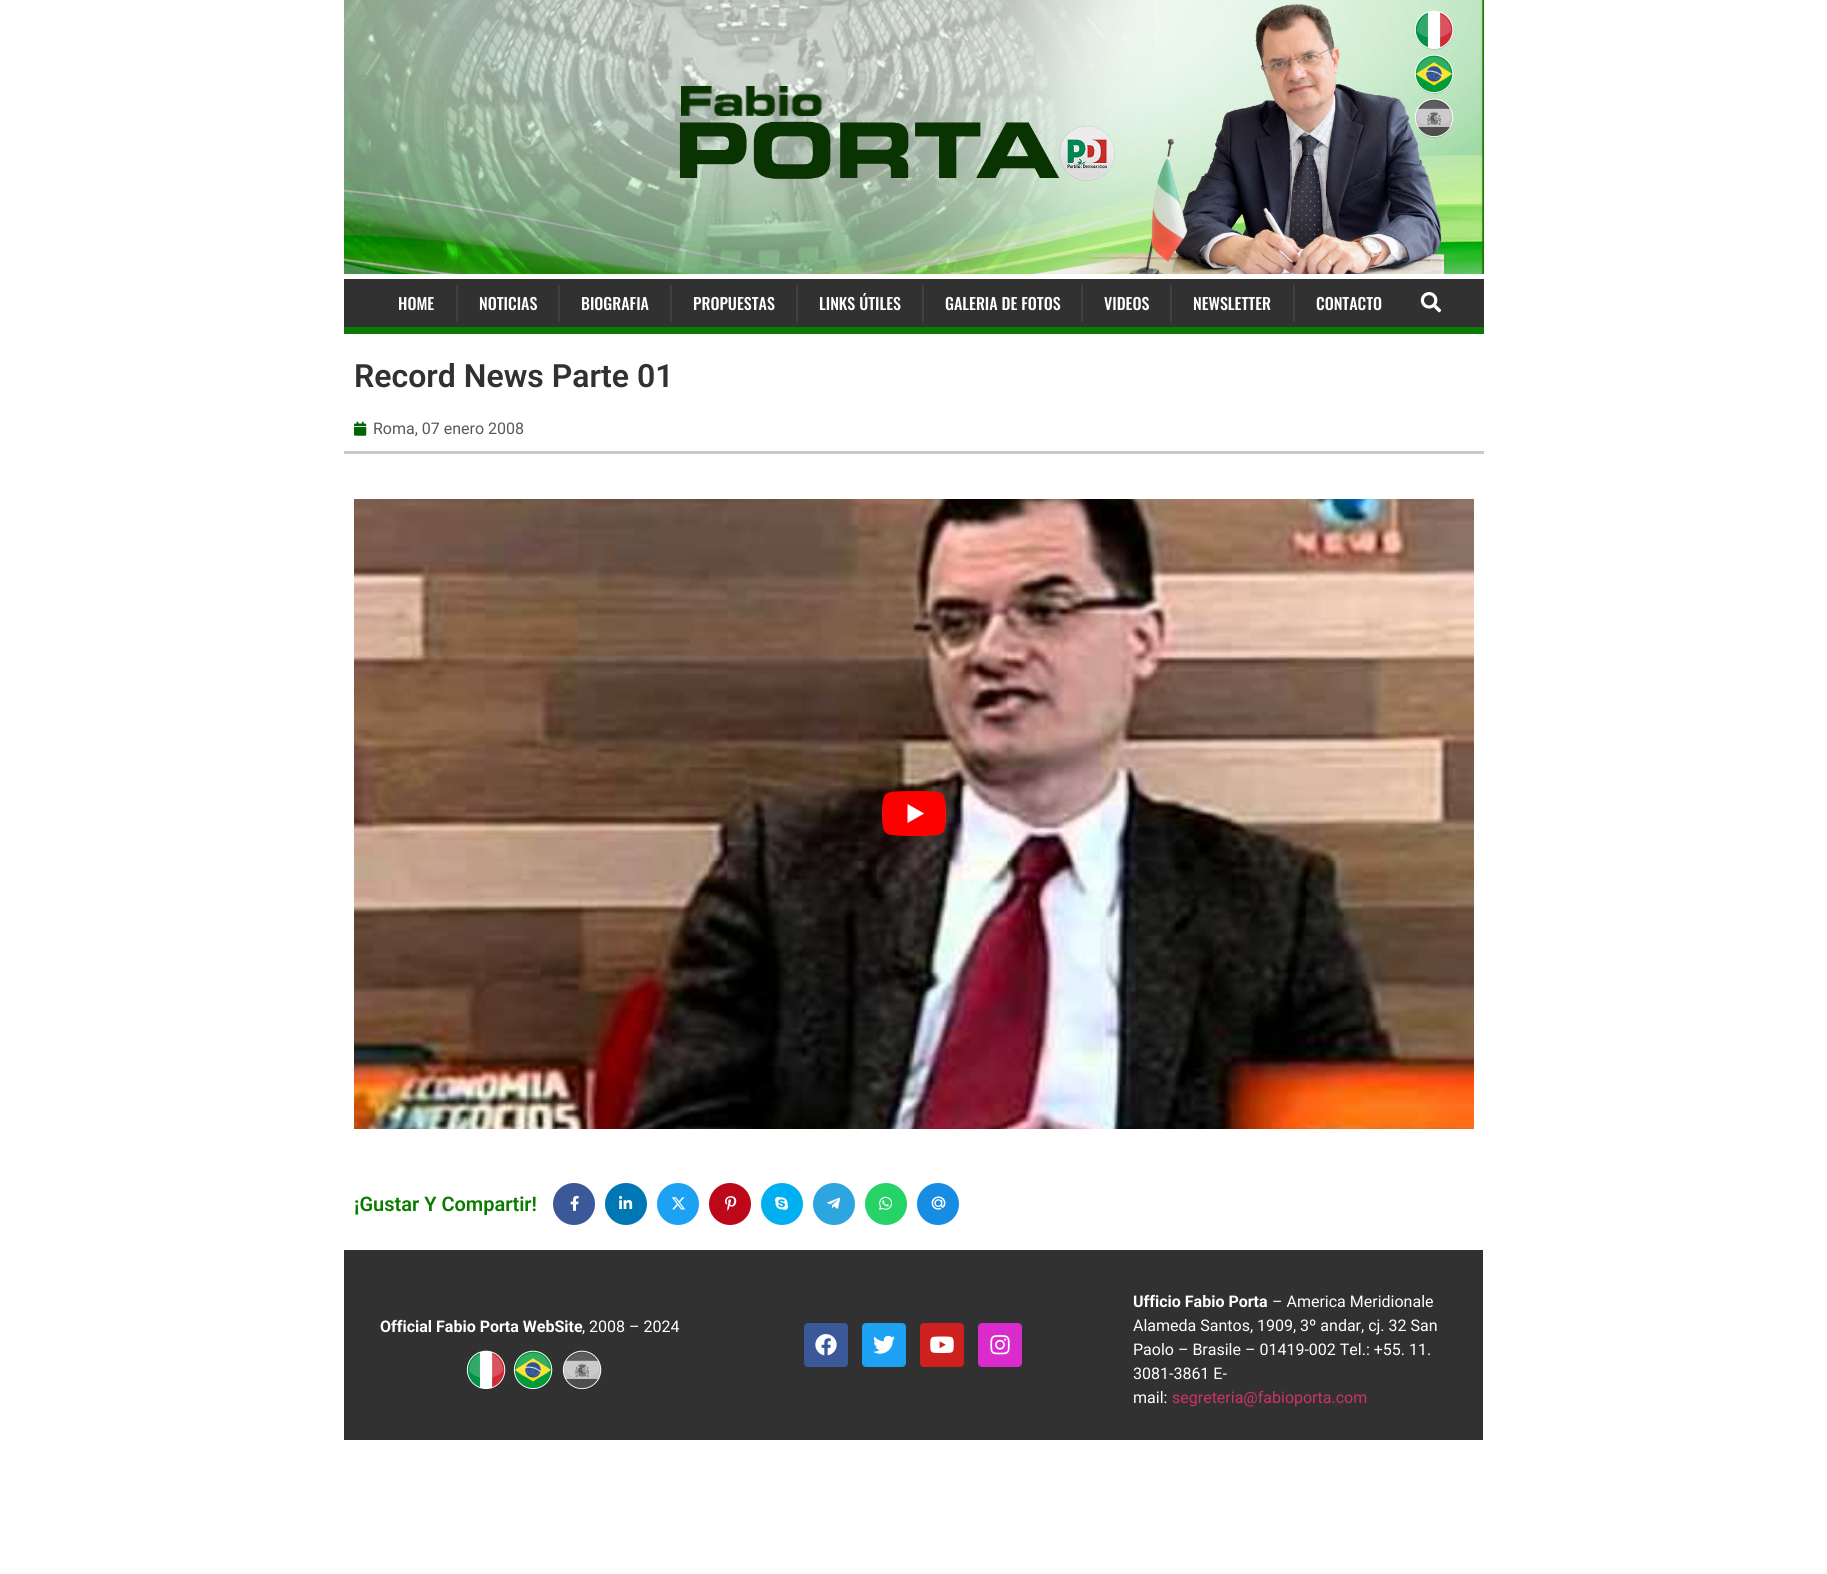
#include <cairo.h>
#include <math.h>
#include <stddef.h>

static cairo_t *c;
static void C(unsigned color){cairo_set_source_rgb(c, (color >> 16) / 255.0, (color >> 8 & 255) / 255.0, (color & 255) / 255.0);}
static void F(const char *family, double size, int italic, int bold){cairo_select_font_face(c, family, italic ? CAIRO_FONT_SLANT_ITALIC : CAIRO_FONT_SLANT_NORMAL,bold ? CAIRO_FONT_WEIGHT_BOLD : CAIRO_FONT_WEIGHT_NORMAL);cairo_set_font_size(c, size);}
static void T(double x, double y, const char *s){cairo_move_to(c, x, y);cairo_show_text(c, s);}
static void R(double x, double y, double w, double h){cairo_rectangle(c, x, y, w, h);cairo_fill(c);}
static void Q(double x, double y, double w, double h, double r){cairo_new_sub_path(c);cairo_arc(c, x + w - r, y + h - r, r, 0, M_PI / 2);cairo_arc(c, x + r, y + h - r, r, M_PI / 2, M_PI);cairo_arc(c, x + r, y + r, r, M_PI, 1.5 * M_PI);cairo_arc(c, x + w - r, y + r, r, 1.5 * M_PI, 2 * M_PI);cairo_close_path(c);}
static void I(const char *path, double x, double y, double w, double h){cairo_surface_t *image = cairo_image_surface_create_from_png(path);cairo_save(c);cairo_set_source_surface(c, image, x, y);cairo_rectangle(c, x, y, w, h);cairo_fill(c);cairo_restore(c);cairo_surface_destroy(image);}
int main(void) {
cairo_surface_t *surface = cairo_image_surface_create(CAIRO_FORMAT_RGB24, 1827, 1574);
c = cairo_create(surface);
cairo_font_options_t *options = cairo_font_options_create();
cairo_font_options_set_hint_metrics(options, CAIRO_HINT_METRICS_OFF);
cairo_font_options_set_hint_style(options, CAIRO_HINT_STYLE_NONE);
cairo_set_font_options(c, options);
cairo_set_miter_limit(c, 4);
C(0xffffff);
cairo_paint(c);
I("1.png",344,0,1140,274);
I("2.png",679,4,765,270);
I("3.png",1414,10,40,40);
I("4.png",1414,54,40,40);
I("5.png",1414,98,40,40);
C(0x313131);
R(344,279,1140,48);
C(0x0a7a00);
R(344,327,1140,7);
F("Oswald Medium",16,0,0);
C(0xffffff);
T(398,310,"HOME");
C(0x404040);
R(456,285,2,37);
C(0xffffff);
T(479,310,"NOTICIAS");
C(0x404040);
R(558,285,2,37);
C(0xffffff);
T(581,310,"BIOGRAFIA");
C(0x404040);
R(670,285,2,37);
C(0xffffff);
T(693,310,"PROPUESTAS");
C(0x404040);
R(796,285,2,37);
C(0xffffff);
T(819,310,"LINKS ÚTILES");
C(0x404040);
R(922,285,2,37);
C(0xffffff);
T(945,310,"GALERIA DE FOTOS");
C(0x404040);
R(1081,285,2,37);
C(0xffffff);
T(1104,310,"VIDEOS");
C(0x404040);
R(1170,285,2,37);
C(0xffffff);
T(1193,310,"NEWSLETTER");
C(0x404040);
R(1293,285,2,37);
C(0xffffff);
T(1316,310,"CONTACTO");
I("6.png",1420,292,22,21);
C(0xc8c8c8);
R(344,451,1140,3);
F("Roboto SemiBold",32,0,0);
C(0x313131);
T(354,387,"Record News Parte 01");
I("7.png",354,421,13,15);
F("Roboto",16,0,0);
C(0x54595f);
T(373,434,"Roma, 07 enero 2008");
I("8.png",354,499,1120,630);
I("9.png",882,791,64,45);
F("Roboto SemiBold",20,0,0);
C(0x0a7a00);
T(354,1211,"¡Gustar Y Compartir!");
C(0x3b5998);
cairo_new_path(c);
cairo_arc(c,574,1204,21,0,2 * M_PI);
cairo_fill(c);
I("10.png",570,1195,9,16);
C(0x0077b5);
cairo_arc(c,626,1204,21,0,2 * M_PI);
cairo_fill(c);
I("11.png",619,1195,14,14);
C(0x1da1f2);
cairo_arc(c,678,1204,21,0,2 * M_PI);
cairo_fill(c);
I("12.png",671,1197,15,13);
C(0xbd081c);
cairo_arc(c,730,1204,21,0,2 * M_PI);
cairo_fill(c);
I("13.png",725,1196,12,15);
C(0x00aff0);
cairo_arc(c,782,1204,21,0,2 * M_PI);
cairo_fill(c);
I("14.png",775,1196,14,14);
C(0x2ca5e0);
cairo_arc(c,834,1204,21,0,2 * M_PI);
cairo_fill(c);
I("15.png",827,1197,14,12);
C(0x25d366);
cairo_arc(c,886,1204,21,0,2 * M_PI);
cairo_fill(c);
I("16.png",879,1196,14,14);
C(0x168de2);
cairo_arc(c,938,1204,21,0,2 * M_PI);
cairo_fill(c);
I("17.png",931,1196,15,14);
C(0x313131);
R(344,1250,1139,190);
F("Roboto",16,0,1);
C(0xffffff);
T(380,1332,"Official Fabio Porta WebSite");
F("Roboto",16,0,0);
T(582,1332,", 2008 – 2024");
I("18.png",466,1350,40,40);
I("19.png",513,1350,40,40);
I("20.png",562,1350,40,40);
C(0x3b5998);
Q(804,1323,44,44,4);
cairo_fill(c);
I("21.png",815,1334,22,22);
C(0x1da1f2);
Q(862,1323,44,44,4);
cairo_fill(c);
I("22.png",873,1335,22,19);
C(0xcd201f);
Q(920,1323,44,44,4);
cairo_fill(c);
I("23.png",930,1336,24,17);
C(0xda2bcd);
Q(978,1323,44,44,4);
cairo_fill(c);
I("24.png",990,1335,20,20);
F("Roboto",16,0,1);
C(0xffffff);
T(1133,1307,"Ufficio Fabio Porta");
F("Roboto",16,0,0);
T(1272,1307,"– America Meridionale");
T(1133,1331,"Alameda Santos, 1909, 3º andar, cj. 32 San");
T(1133,1355,"Paolo – Brasile – 01419-002 Tel.: +55. 11.");
T(1133,1379,"3081-3861 E-");
T(1133,1403,"mail:");
C(0xcc3366);
T(1172,1403,"segreteria@fabioporta.com");
cairo_surface_write_to_png(surface, "o.png");
cairo_font_options_destroy(options);
cairo_destroy(c);
cairo_surface_destroy(surface);
return 0;
}
